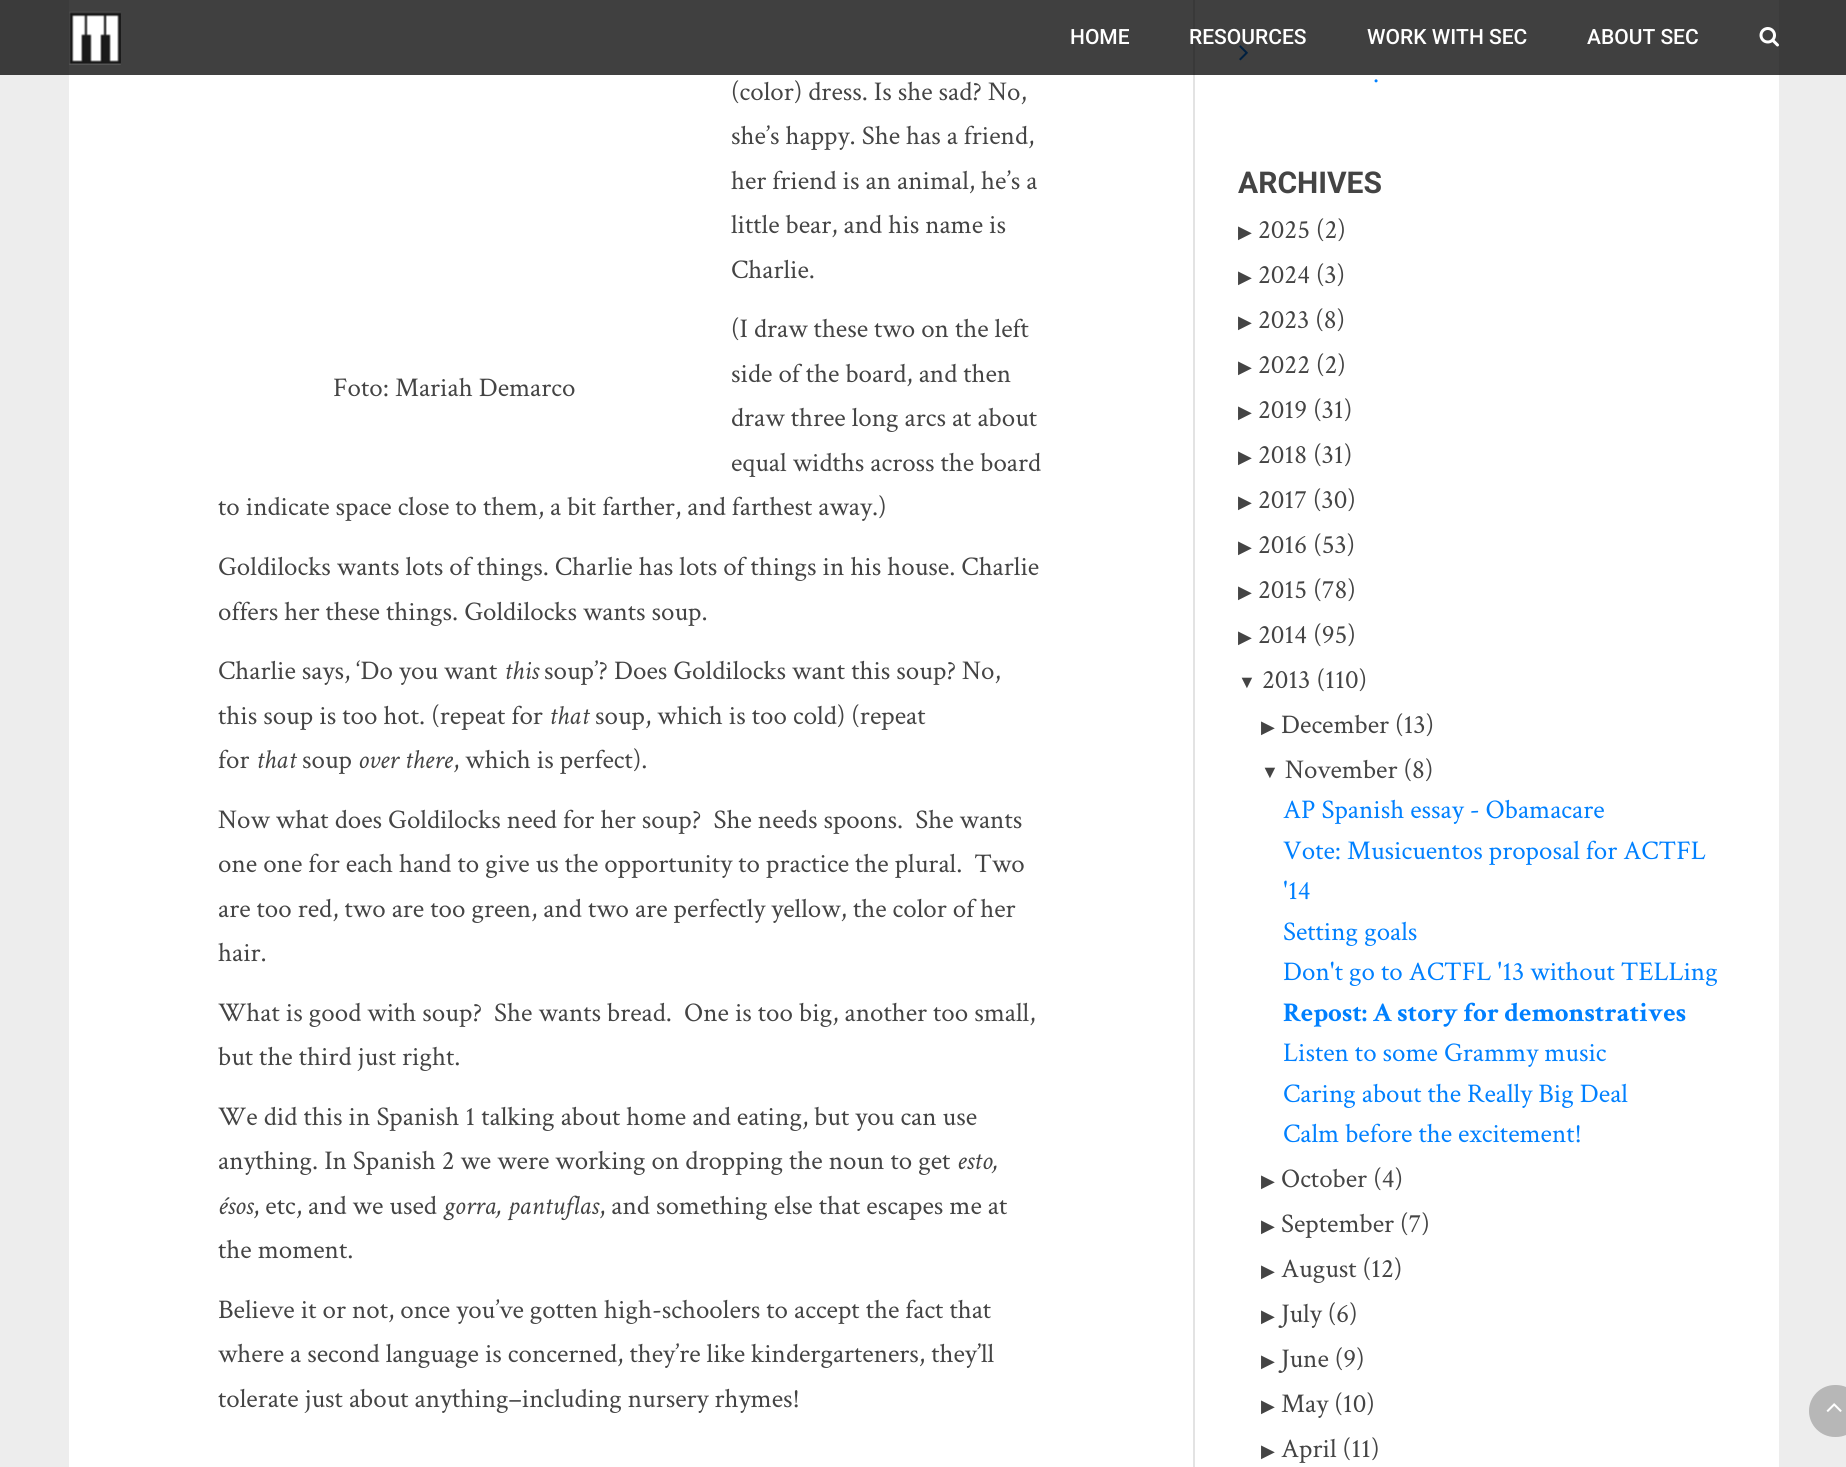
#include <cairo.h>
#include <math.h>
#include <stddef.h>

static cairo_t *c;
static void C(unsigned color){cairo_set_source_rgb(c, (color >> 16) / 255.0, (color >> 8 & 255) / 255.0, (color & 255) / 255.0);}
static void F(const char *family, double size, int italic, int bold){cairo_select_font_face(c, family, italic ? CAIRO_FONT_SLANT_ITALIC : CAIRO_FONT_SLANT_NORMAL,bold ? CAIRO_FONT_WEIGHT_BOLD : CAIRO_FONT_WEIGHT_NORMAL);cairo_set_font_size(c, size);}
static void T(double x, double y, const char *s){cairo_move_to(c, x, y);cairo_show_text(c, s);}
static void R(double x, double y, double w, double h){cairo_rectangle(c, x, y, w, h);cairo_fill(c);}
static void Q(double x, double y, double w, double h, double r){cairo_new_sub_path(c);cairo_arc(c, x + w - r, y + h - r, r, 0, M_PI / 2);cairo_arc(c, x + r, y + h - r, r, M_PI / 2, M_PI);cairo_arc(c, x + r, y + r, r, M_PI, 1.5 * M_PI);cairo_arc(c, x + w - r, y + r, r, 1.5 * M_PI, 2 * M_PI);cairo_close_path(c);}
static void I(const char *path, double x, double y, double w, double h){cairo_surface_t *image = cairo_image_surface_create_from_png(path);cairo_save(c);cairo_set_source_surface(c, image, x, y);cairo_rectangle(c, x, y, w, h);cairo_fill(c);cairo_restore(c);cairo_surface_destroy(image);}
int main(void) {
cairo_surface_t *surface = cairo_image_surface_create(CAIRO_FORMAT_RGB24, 1846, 1467);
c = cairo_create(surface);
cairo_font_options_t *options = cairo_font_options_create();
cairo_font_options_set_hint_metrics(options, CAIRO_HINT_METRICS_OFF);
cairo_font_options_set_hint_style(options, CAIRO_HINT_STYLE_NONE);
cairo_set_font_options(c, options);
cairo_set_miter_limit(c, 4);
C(0xededed);
cairo_paint(c);
C(0xffffff);
R(69,0,1710,1467);
C(0xe3e3e3);
R(1193,0,2,1467);
I("3.png",1239,45,9,16);
cairo_set_source_rgba(c,0,0,0,0.75);
R(0,0,1846,75);
I("1.png",69,11,52,54);
F("Roboto Medium",21,0,0);
C(0xffffff);
T(1070,44,"HOME");
T(1189,44,"RESOURCES");
T(1367,44,"WORK WITH SEC");
T(1587,44,"ABOUT SEC");
I("2.png",1759,27,20,20);
F("Crimson Text",27,0,0);
C(0x444444);
T(731,100,"(color) dress. Is she sad? No,");
T(731,144,"she’s happy. She has a friend,");
T(731,189,"her friend is an animal, he’s a");
T(731,233,"little bear, and his name is");
T(731,278,"Charlie.");
T(731,337,"(I draw these two on the left");
T(731,382,"side of the board, and then");
T(731,426,"draw three long arcs at about");
T(731,471,"equal widths across the board");
T(218,515,"to indicate space close to them, a bit farther, and farthest away.)");
T(333,396,"Foto: Mariah Demarco");
T(218,575,"Goldilocks wants lots of things. Charlie has lots of things in his house. Charlie");
T(218,620,"offers her these things. Goldilocks wants soup.");
T(218,679,"Charlie says, ‘Do you want");
F("Crimson Text",27,1,0);
T(504,679,"this");
F("Crimson Text",27,0,0);
T(544,679,"soup’? Does Goldilocks want this soup? No,");
T(218,724,"this soup is too hot. (repeat for");
F("Crimson Text",27,1,0);
T(549,724,"that");
F("Crimson Text",27,0,0);
T(595,724,"soup, which is too cold) (repeat");
T(218,768,"for");
F("Crimson Text",27,1,0);
T(256,768,"that");
F("Crimson Text",27,0,0);
T(302,768,"soup");
F("Crimson Text",27,1,0);
T(358,768,"over there");
F("Crimson Text",27,0,0);
T(453,768,", which is perfect).");
T(218,828,"Now what does Goldilocks need for her soup?  She needs spoons.  She wants");
T(218,872,"one one for each hand to give us the opportunity to practice the plural.  Two");
T(218,917,"are too red, two are too green, and two are perfectly yellow, the color of her");
T(218,961,"hair.");
T(218,1021,"What is good with soup?  She wants bread.  One is too big, another too small,");
T(218,1065,"but the third just right.");
T(218,1125,"We did this in Spanish 1 talking about home and eating, but you can use");
T(218,1169,"anything. In Spanish 2 we were working on dropping the noun to get");
F("Crimson Text",27,1,0);
T(957,1169,"esto,");
T(218,1214,"ésos");
F("Crimson Text",27,0,0);
T(253,1214,", etc, and we used");
F("Crimson Text",27,1,0);
T(443,1214,"gorra, pantuflas");
F("Crimson Text",27,0,0);
T(599,1214,", and something else that escapes me at");
T(218,1258,"the moment.");
T(218,1318,"Believe it or not, once you’ve gotten high-schoolers to accept the fact that");
T(218,1362,"where a second language is concerned, they’re like kindergarteners, they’ll");
T(218,1407,"tolerate just about anything–including nursery rhymes!");
C(0x0080ff);
T(1373,82,".");
F("Roboto",30,0,1);
C(0x444444);
T(1238,193,"ARCHIVES");
F("DejaVu Sans",18,0,0);
T(1238,238,"▶");
F("Crimson Text",27,0,0);
T(1258,238,"2025 (2)");
F("DejaVu Sans",18,0,0);
T(1238,283,"▶");
F("Crimson Text",27,0,0);
T(1258,283,"2024 (3)");
F("DejaVu Sans",18,0,0);
T(1238,328,"▶");
F("Crimson Text",27,0,0);
T(1258,328,"2023 (8)");
F("DejaVu Sans",18,0,0);
T(1238,373,"▶");
F("Crimson Text",27,0,0);
T(1258,373,"2022 (2)");
F("DejaVu Sans",18,0,0);
T(1238,418,"▶");
F("Crimson Text",27,0,0);
T(1258,418,"2019 (31)");
F("DejaVu Sans",18,0,0);
T(1238,463,"▶");
F("Crimson Text",27,0,0);
T(1258,463,"2018 (31)");
F("DejaVu Sans",18,0,0);
T(1238,508,"▶");
F("Crimson Text",27,0,0);
T(1258,508,"2017 (30)");
F("DejaVu Sans",18,0,0);
T(1238,553,"▶");
F("Crimson Text",27,0,0);
T(1258,553,"2016 (53)");
F("DejaVu Sans",18,0,0);
T(1238,598,"▶");
F("Crimson Text",27,0,0);
T(1258,598,"2015 (78)");
F("DejaVu Sans",18,0,0);
T(1238,643,"▶");
F("Crimson Text",27,0,0);
T(1258,643,"2014 (95)");
F("Liberation Serif",18,0,0);
T(1238,688,"▼");
F("Crimson Text",27,0,0);
T(1262,688,"2013 (110)");
F("DejaVu Sans",18,0,0);
T(1261,733,"▶");
F("Crimson Text",27,0,0);
T(1281,733,"December (13)");
F("Liberation Serif",18,0,0);
T(1261,778,"▼");
F("Crimson Text",27,0,0);
T(1285,778,"November (8)");
C(0x0080ff);
T(1283,818,"AP Spanish essay - Obamacare");
T(1283,859,"Vote: Musicuentos proposal for ACTFL");
T(1283,899,"'14");
T(1283,940,"Setting goals");
T(1283,980,"Don't go to ACTFL '13 without TELLing");
F("Crimson Text",27,0,1);
T(1283,1021,"Repost: A story for demonstratives");
F("Crimson Text",27,0,0);
T(1283,1061,"Listen to some Grammy music");
T(1283,1102,"Caring about the Really Big Deal");
T(1283,1142,"Calm before the excitement!");
F("DejaVu Sans",18,0,0);
C(0x444444);
T(1261,1187,"▶");
F("Crimson Text",27,0,0);
T(1281,1187,"October (4)");
F("DejaVu Sans",18,0,0);
T(1261,1232,"▶");
F("Crimson Text",27,0,0);
T(1281,1232,"September (7)");
F("DejaVu Sans",18,0,0);
T(1261,1277,"▶");
F("Crimson Text",27,0,0);
T(1281,1277,"August (12)");
F("DejaVu Sans",18,0,0);
T(1261,1322,"▶");
F("Crimson Text",27,0,0);
T(1281,1322,"July (6)");
F("DejaVu Sans",18,0,0);
T(1261,1367,"▶");
F("Crimson Text",27,0,0);
T(1281,1367,"June (9)");
F("DejaVu Sans",18,0,0);
T(1261,1412,"▶");
F("Crimson Text",27,0,0);
T(1281,1412,"May (10)");
F("DejaVu Sans",18,0,0);
T(1261,1457,"▶");
F("Crimson Text",27,0,0);
T(1281,1457,"April (11)");
C(0xb7b7b7);
Q(1809,1385,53,52,26);
cairo_fill(c);
I("4.png",1826,1403,16,9);
cairo_surface_write_to_png(surface, "o.png");
cairo_font_options_destroy(options);
cairo_destroy(c);
cairo_surface_destroy(surface);
return 0;
}
